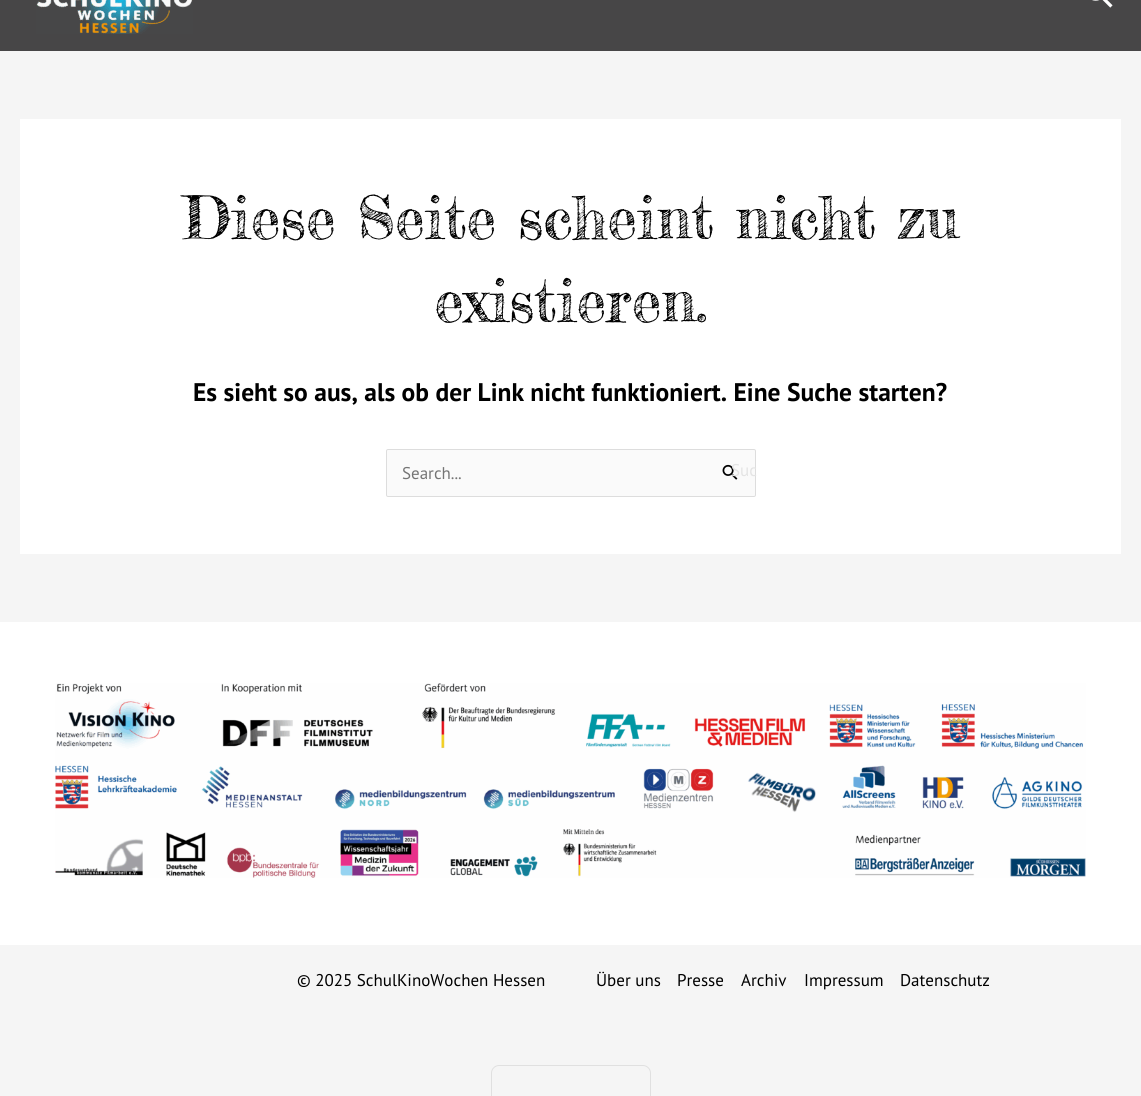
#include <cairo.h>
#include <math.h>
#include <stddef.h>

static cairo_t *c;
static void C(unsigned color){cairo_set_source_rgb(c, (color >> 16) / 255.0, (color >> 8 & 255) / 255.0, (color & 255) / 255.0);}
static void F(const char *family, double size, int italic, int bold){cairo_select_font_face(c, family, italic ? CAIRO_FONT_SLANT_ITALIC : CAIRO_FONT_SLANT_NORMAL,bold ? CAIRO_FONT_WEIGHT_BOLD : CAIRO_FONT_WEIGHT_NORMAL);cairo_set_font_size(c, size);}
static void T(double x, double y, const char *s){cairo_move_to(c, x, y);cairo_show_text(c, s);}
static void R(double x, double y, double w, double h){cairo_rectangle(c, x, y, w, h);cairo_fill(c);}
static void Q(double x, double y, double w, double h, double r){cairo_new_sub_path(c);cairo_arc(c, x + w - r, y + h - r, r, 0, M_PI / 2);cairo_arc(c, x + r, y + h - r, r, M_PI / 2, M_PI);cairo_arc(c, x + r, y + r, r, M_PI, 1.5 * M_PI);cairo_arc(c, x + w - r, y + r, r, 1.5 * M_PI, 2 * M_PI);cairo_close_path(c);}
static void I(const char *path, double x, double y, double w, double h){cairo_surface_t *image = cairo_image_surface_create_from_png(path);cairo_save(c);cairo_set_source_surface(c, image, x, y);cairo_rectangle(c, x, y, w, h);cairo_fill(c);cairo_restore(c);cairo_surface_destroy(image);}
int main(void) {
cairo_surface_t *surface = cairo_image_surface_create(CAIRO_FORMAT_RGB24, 1141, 1096);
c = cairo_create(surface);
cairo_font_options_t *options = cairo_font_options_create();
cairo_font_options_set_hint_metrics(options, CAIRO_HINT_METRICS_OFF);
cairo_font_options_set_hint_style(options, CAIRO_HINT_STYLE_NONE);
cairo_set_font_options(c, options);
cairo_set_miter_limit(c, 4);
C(0xf5f5f5);
cairo_paint(c);
C(0x474647);
R(0,0,1141,51);
I("1.png",36,0,157,34);
I("2.png",1092,0,21,8);
C(0xffffff);
R(20,119,1101,435);
F("Fredericka the Great",59.5,0,0);
C(0x000000);
T(183,239,"Diese Seite scheint nicht zu");
T(434,322,"existieren.");
F("PT Sans",25.5,0,1);
T(193,401,"Es sieht so aus, als ob der Link nicht funktioniert. Eine Suche starten?");
C(0xfafafa);
Q(386.5,449.5,369,47,1.5);
cairo_fill_preserve(c);
C(0xdddddd);
cairo_set_line_width(c,1);
cairo_stroke(c);
F("PT Sans",17,0,0);
C(0x757575);
T(402,479,"Search...");
I("3.png",722,464,16,16);
C(0xe4e4e4);
T(731,476,"Suc");
C(0xffffff);
R(0,622,1141,323);
I("4.png",55,683,1031,195);
C(0x000000);
T(297,986,"© 2025 SchulKinoWochen Hessen");
T(596,986,"Über uns");
T(677,986,"Presse");
T(741,986,"Archiv");
T(804,986,"Impressum");
T(900,986,"Datenschutz");
cairo_new_path(c);
cairo_move_to(c,499,1065.5);
cairo_line_to(c,643,1065.5);
cairo_curve_to(c,647,1065.5,650.5,1069,650.5,1073);
cairo_line_to(c,650.5,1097);
cairo_curve_to(c,650.5,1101,647,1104.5,643,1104.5);
cairo_line_to(c,499,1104.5);
cairo_curve_to(c,495,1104.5,491.5,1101,491.5,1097);
cairo_line_to(c,491.5,1073);
cairo_curve_to(c,491.5,1069,495,1065.5,499,1065.5);
cairo_close_path(c);
C(0xe0e0e0);
cairo_stroke(c);
cairo_surface_write_to_png(surface, "o.png");
cairo_font_options_destroy(options);
cairo_destroy(c);
cairo_surface_destroy(surface);
return 0;
}
